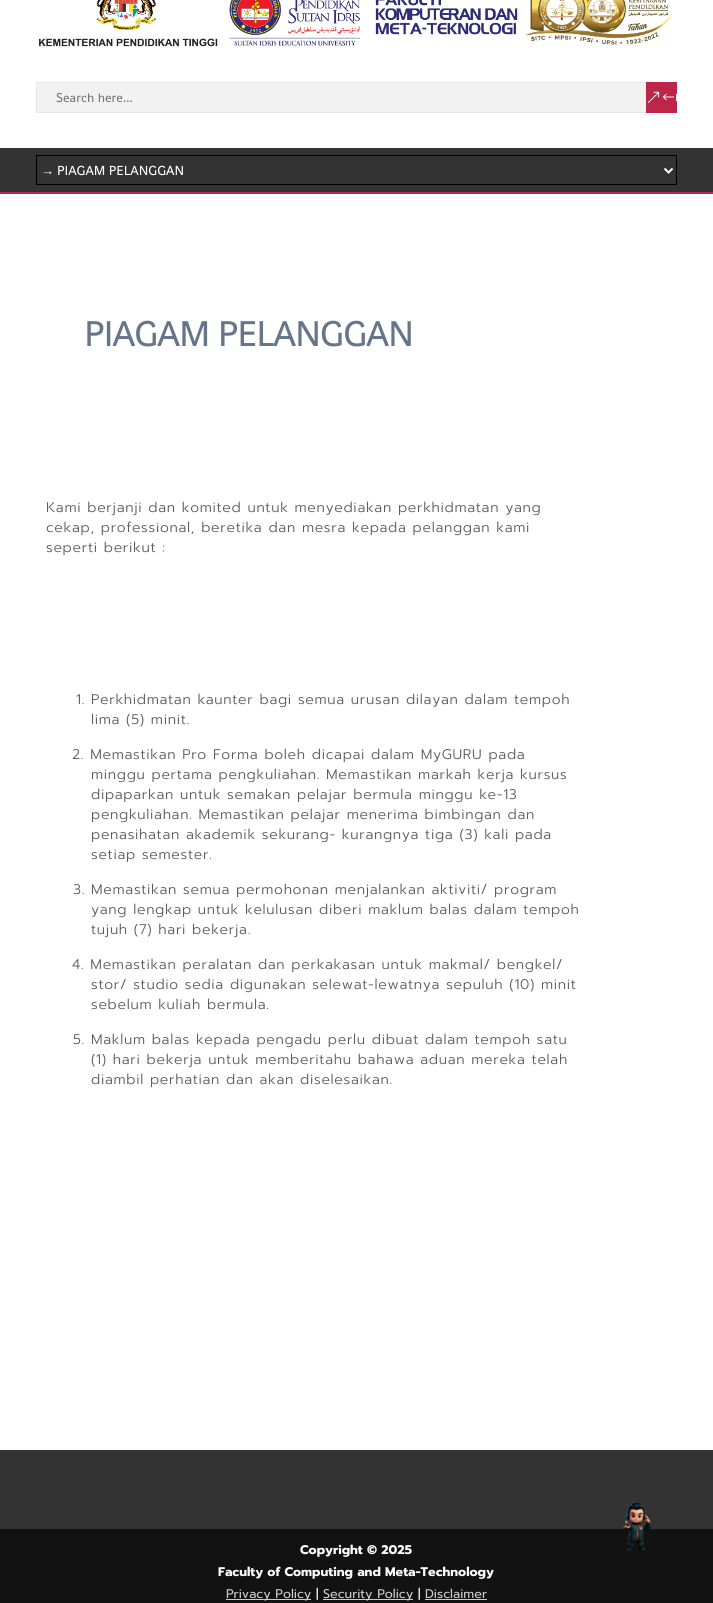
#include <cairo.h>
#include <math.h>
#include <stddef.h>

static cairo_t *c;
static void C(unsigned color){cairo_set_source_rgb(c, (color >> 16) / 255.0, (color >> 8 & 255) / 255.0, (color & 255) / 255.0);}
static void F(const char *family, double size, int italic, int bold){cairo_select_font_face(c, family, italic ? CAIRO_FONT_SLANT_ITALIC : CAIRO_FONT_SLANT_NORMAL,bold ? CAIRO_FONT_WEIGHT_BOLD : CAIRO_FONT_WEIGHT_NORMAL);cairo_set_font_size(c, size);}
static void T(double x, double y, const char *s){cairo_move_to(c, x, y);cairo_show_text(c, s);}
static void L(double x, double y, const char *s, double letter, double word){cairo_move_to(c, x, y);while (*s) {char ch[5] = {0};int n = 0;do ch[n++] = *s++; while ((*s & 0xC0) == 0x80);cairo_show_text(c, ch);cairo_rel_move_to(c, letter + word * (*ch == ' '), 0);}}
static void R(double x, double y, double w, double h){cairo_rectangle(c, x, y, w, h);cairo_fill(c);}
static void I(const char *path, double x, double y, double w, double h){cairo_surface_t *image = cairo_image_surface_create_from_png(path);cairo_save(c);cairo_set_source_surface(c, image, x, y);cairo_rectangle(c, x, y, w, h);cairo_fill(c);cairo_restore(c);cairo_surface_destroy(image);}
int main(void) {
cairo_surface_t *surface = cairo_image_surface_create(CAIRO_FORMAT_RGB24, 713, 1603);
c = cairo_create(surface);
cairo_font_options_t *options = cairo_font_options_create();
cairo_font_options_set_hint_metrics(options, CAIRO_HINT_METRICS_OFF);
cairo_font_options_set_hint_style(options, CAIRO_HINT_STYLE_NONE);
cairo_set_font_options(c, options);
cairo_set_miter_limit(c, 4);
C(0xffffff);
cairo_paint(c);
I("1.png",38,0,634,47);
C(0xf2f2f2);
R(37,83,609,29);
cairo_rectangle(c,36.5,82.5,636,30);
C(0xe6e6e6);
cairo_set_line_width(c,1);
cairo_stroke(c);
F("Shanti",13,0,0);
C(0x757575);
T(56,102,"Search here...");
C(0xbc2649);
R(646,82,31,31);
I("2.png",647,91,30,12);
C(0x333333);
R(0,148,713,44);
C(0xbc2649);
R(0,192,713,2);
cairo_rectangle(c,36.5,155.5,640,29);
C(0x000000);
cairo_stroke(c);
cairo_new_path(c);
cairo_move_to(c,664.5,168.5);
cairo_line_to(c,668.5,172.5);
cairo_line_to(c,672.5,168.5);
C(0xffffff);
cairo_set_line_width(c,2);
cairo_stroke(c);
F("Liberation Sans",13.25,0,0);
T(41,175,"→");
F("Shanti",13.25,0,0);
T(57,175,"PIAGAM PELANGGAN");
F("Shanti",36,0,0);
C(0x65768b);
L(84,346,"PIAGAM PELANGGAN",-1,0);
F("Prompt Light",14,0,0);
C(0x5f5b5b);
L(46,512,"Kami berjanji dan komited untuk menyediakan perkhidmatan yang",.7,0);
L(46,532,"cekap, professional, beretika dan mesra kepada pelanggan kami",.7,0);
L(46,552,"seperti berikut :",.7,0);
L(76,704,"1. Perkhidmatan kaunter bagi semua urusan dilayan dalam tempoh",.7,0);
L(91,724,"lima (5) minit.",.7,0);
L(72,759,"2. Memastikan Pro Forma boleh dicapai dalam MyGURU pada",.7,0);
L(91,779,"minggu pertama pengkuliahan. Memastikan markah kerja kursus",.7,0);
L(91,799,"dipaparkan untuk semakan pelajar bermula minggu ke-13",.7,0);
L(91,819,"pengkuliahan. Memastikan pelajar menerima bimbingan dan",.7,0);
L(91,839,"penasihatan akademik sekurang- kurangnya tiga (3) kali pada",.7,0);
L(91,859,"setiap semester.",.7,0);
L(73,894,"3. Memastikan semua permohonan menjalankan aktiviti/ program",.7,0);
L(91,914,"yang lengkap untuk kelulusan diberi maklum balas dalam tempoh",.7,0);
L(91,934,"tujuh (7) hari bekerja.",.7,0);
L(72,969,"4. Memastikan peralatan dan perkakasan untuk makmal/ bengkel/",.7,0);
L(91,989,"stor/ studio sedia digunakan selewat-lewatnya sepuluh (10) minit",.7,0);
L(91,1009,"sebelum kuliah bermula.",.7,0);
L(73,1044,"5. Maklum balas kepada pengadu perlu dibuat dalam tempoh satu",.7,0);
L(91,1064,"(1) hari bekerja untuk memberitahu bahawa aduan mereka telah",.7,0);
L(91,1084,"diambil perhatian dan akan diselesaikan.",.7,0);
C(0x333333);
R(0,1450,713,79);
C(0x121212);
R(0,1529,713,74);
F("Prompt",12.6,0,1);
C(0xffffff);
T(300,1554,"Copyright © 2025");
T(218,1576,"Faculty of Computing and Meta-Technology");
C(0xcccccc);
R(226,1599,85,1);
F("Prompt",12.6,0,0);
T(226,1598,"Privacy Policy");
C(0xffffff);
T(316,1598,"|");
C(0xcccccc);
R(323,1599,90,1);
T(323,1598,"Security Policy");
C(0xffffff);
T(418,1598,"|");
C(0xcccccc);
T(425,1598,"Disclaimer");
R(425,1599,62,1);
I("3.png",622,1502,30,50);
cairo_surface_write_to_png(surface, "o.png");
cairo_font_options_destroy(options);
cairo_destroy(c);
cairo_surface_destroy(surface);
return 0;
}
